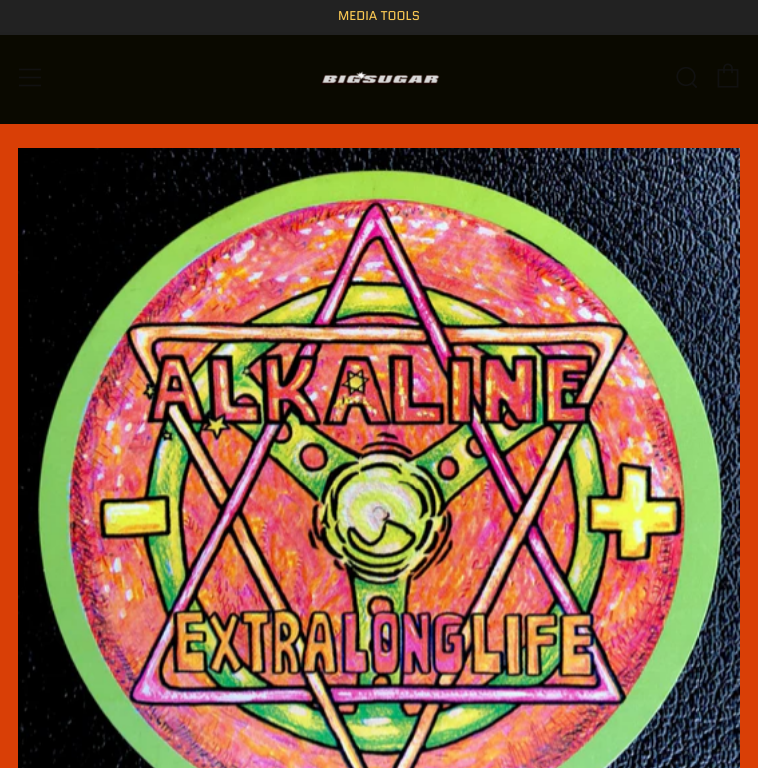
#include <cairo.h>
#include <math.h>
#include <stddef.h>

static cairo_t *c;
static void C(unsigned color){cairo_set_source_rgb(c, (color >> 16) / 255.0, (color >> 8 & 255) / 255.0, (color & 255) / 255.0);}
static void F(const char *family, double size, int italic, int bold){cairo_select_font_face(c, family, italic ? CAIRO_FONT_SLANT_ITALIC : CAIRO_FONT_SLANT_NORMAL,bold ? CAIRO_FONT_WEIGHT_BOLD : CAIRO_FONT_WEIGHT_NORMAL);cairo_set_font_size(c, size);}
static void T(double x, double y, const char *s){cairo_move_to(c, x, y);cairo_show_text(c, s);}
static void R(double x, double y, double w, double h){cairo_rectangle(c, x, y, w, h);cairo_fill(c);}
static void I(const char *path, double x, double y, double w, double h){cairo_surface_t *image = cairo_image_surface_create_from_png(path);cairo_save(c);cairo_set_source_surface(c, image, x, y);cairo_rectangle(c, x, y, w, h);cairo_fill(c);cairo_restore(c);cairo_surface_destroy(image);}
int main(void) {
cairo_surface_t *surface = cairo_image_surface_create(CAIRO_FORMAT_RGB24, 758, 768);
c = cairo_create(surface);
cairo_font_options_t *options = cairo_font_options_create();
cairo_font_options_set_hint_metrics(options, CAIRO_HINT_METRICS_OFF);
cairo_font_options_set_hint_style(options, CAIRO_HINT_STYLE_NONE);
cairo_set_font_options(c, options);
cairo_set_miter_limit(c, 4);
C(0xd93f06);
cairo_paint(c);
C(0x222222);
R(0,0,758,32);
F("Quantico",12.75,0,0);
C(0xfac853);
T(338,20,"MEDIA TOOLS");
C(0x0a0900);
R(0,35,758,89);
C(0x212121);
R(0,32,758,3);
I("1.png",19,68,22,19);
I("2.png",321,71,119,14);
I("3.png",676,67,21,21);
I("4.png",717,63,22,25);
I("5.png",18,148,722,620);
cairo_surface_write_to_png(surface, "o.png");
cairo_font_options_destroy(options);
cairo_destroy(c);
cairo_surface_destroy(surface);
return 0;
}
